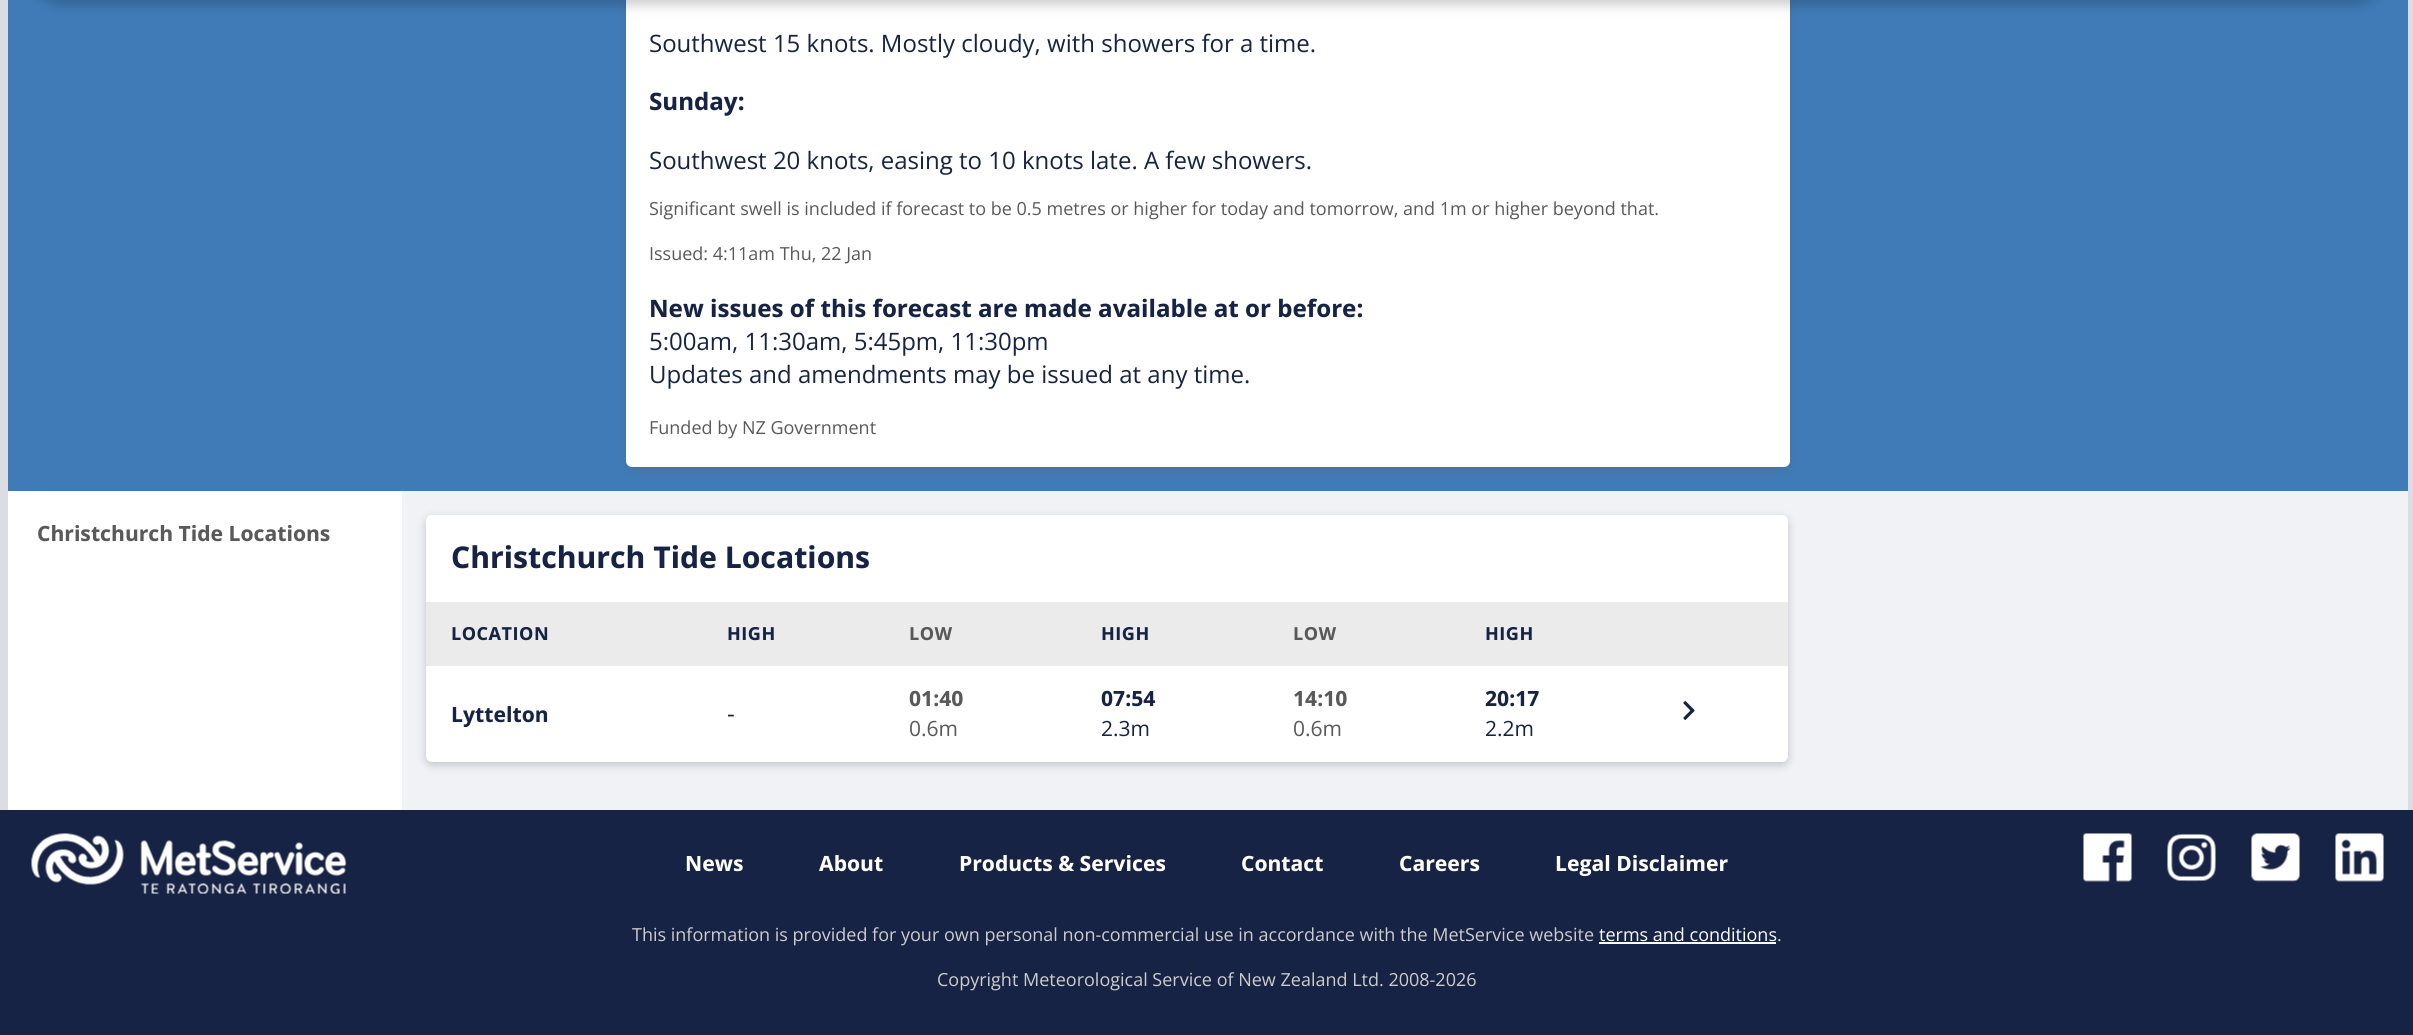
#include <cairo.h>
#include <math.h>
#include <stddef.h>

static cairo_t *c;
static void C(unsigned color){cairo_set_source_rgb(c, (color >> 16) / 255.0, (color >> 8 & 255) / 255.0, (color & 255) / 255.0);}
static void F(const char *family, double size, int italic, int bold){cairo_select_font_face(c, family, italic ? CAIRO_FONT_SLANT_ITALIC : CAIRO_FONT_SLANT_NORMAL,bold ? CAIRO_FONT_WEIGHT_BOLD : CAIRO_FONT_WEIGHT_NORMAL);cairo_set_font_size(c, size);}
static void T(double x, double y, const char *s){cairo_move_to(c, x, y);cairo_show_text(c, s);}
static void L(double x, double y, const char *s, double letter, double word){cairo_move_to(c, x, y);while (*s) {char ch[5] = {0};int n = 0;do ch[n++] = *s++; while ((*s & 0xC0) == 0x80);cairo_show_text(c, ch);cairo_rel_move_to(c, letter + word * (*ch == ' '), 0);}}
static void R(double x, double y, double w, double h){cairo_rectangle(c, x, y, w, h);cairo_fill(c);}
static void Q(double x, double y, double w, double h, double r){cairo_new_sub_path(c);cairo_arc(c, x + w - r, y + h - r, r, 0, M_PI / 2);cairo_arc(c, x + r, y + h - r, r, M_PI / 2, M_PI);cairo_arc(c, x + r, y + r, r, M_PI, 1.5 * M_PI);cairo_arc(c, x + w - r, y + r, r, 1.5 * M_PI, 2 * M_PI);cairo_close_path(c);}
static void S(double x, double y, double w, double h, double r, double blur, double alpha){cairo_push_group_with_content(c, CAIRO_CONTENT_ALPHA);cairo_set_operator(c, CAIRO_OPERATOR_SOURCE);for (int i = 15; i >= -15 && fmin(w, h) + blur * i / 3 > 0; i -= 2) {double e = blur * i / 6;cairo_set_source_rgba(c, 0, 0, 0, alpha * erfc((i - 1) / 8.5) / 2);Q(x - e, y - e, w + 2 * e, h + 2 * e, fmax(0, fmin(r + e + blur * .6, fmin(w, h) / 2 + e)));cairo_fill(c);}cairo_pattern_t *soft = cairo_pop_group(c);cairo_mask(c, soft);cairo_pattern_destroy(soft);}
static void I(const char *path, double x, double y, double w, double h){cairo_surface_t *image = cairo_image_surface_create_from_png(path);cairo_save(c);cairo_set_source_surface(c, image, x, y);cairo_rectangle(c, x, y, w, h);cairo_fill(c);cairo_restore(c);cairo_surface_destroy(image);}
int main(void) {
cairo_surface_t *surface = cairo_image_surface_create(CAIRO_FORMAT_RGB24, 2413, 1035);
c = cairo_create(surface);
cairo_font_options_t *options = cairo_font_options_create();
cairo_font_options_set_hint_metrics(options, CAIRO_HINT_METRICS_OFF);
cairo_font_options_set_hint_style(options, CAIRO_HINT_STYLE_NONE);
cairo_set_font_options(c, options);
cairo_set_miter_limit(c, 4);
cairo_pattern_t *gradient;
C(0xdbdde4);
cairo_paint(c);
gradient = cairo_pattern_create_linear(1207,-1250,1208,491);
cairo_pattern_add_color_stop_rgba(gradient,.17,0.114,0.294,0.529,1);
cairo_pattern_add_color_stop_rgba(gradient,.2,0.114,0.298,0.533,1);
cairo_pattern_add_color_stop_rgba(gradient,.22,0.122,0.306,0.541,1);
cairo_pattern_add_color_stop_rgba(gradient,.25,0.125,0.318,0.553,1);
cairo_pattern_add_color_stop_rgba(gradient,.27,0.137,0.329,0.573,1);
cairo_pattern_add_color_stop_rgba(gradient,.3,0.149,0.349,0.588,1);
cairo_pattern_add_color_stop_rgba(gradient,.32,0.161,0.369,0.612,1);
cairo_pattern_add_color_stop_rgba(gradient,.34,0.176,0.388,0.631,1);
cairo_pattern_add_color_stop_rgba(gradient,.37,0.192,0.408,0.651,1);
cairo_pattern_add_color_stop_rgba(gradient,.39,0.204,0.427,0.667,1);
cairo_pattern_add_color_stop_rgba(gradient,.42,0.22,0.443,0.686,1);
cairo_pattern_add_color_stop_rgba(gradient,.44,0.231,0.459,0.698,1);
cairo_pattern_add_color_stop_rgba(gradient,.47,0.243,0.471,0.71,1);
cairo_pattern_add_color_stop_rgba(gradient,.49,0.247,0.478,0.714,1);
cairo_pattern_add_color_stop_rgba(gradient,.52,0.251,0.482,0.718,1);
cairo_set_source(c,gradient);
cairo_pattern_destroy(gradient);
R(8,0,2400,491);
C(0x555b6c);
S(626,-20,1164,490,6,4.5,.3);
C(0xffffff);
Q(626,-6,1164,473,6);
cairo_fill(c);
C(0x000000);
S(32,-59,2352,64,40.5,6,.2);
F("Open Sans",24,0,0);
C(0x172344);
T(649,52,"Southwest 15 knots. Mostly cloudy, with showers for a time.");
F("Open Sans",24,0,1);
T(649,110,"Sunday:");
F("Open Sans",24,0,0);
T(649,169,"Southwest 20 knots, easing to 10 knots late. A few showers.");
F("Open Sans",18,0,0);
C(0x595959);
T(649,215,"Significant swell is included if forecast to be 0.5 metres or higher for today and tomorrow, and 1m or higher beyond that.");
T(649,260,"Issued: 4:11am Thu, 22 Jan");
F("Open Sans",24,0,1);
C(0x172344);
T(649,317,"New issues of this forecast are made available at or before:");
F("Open Sans",24,0,0);
T(649,350,"5:00am, 11:30am, 5:45pm, 11:30pm");
T(649,383,"Updates and amendments may be issued at any time.");
F("Open Sans",18,0,0);
C(0x595959);
T(649,434,"Funded by NZ Government");
C(0xf1f2f5);
R(402,491,2006,319);
C(0xffffff);
R(8,491,394,319);
F("Open Sans",21,0,1);
C(0x595959);
T(37,541,"Christchurch Tide Locations");
C(0x555b6c);
S(426,518,1362,247,6,4.5,.3);
C(0xffffff);
Q(426,515,1362,247,6);
cairo_fill(c);
F("Open Sans",30,0,1);
C(0x172344);
T(451,568,"Christchurch Tide Locations");
C(0xebebeb);
R(426,602,1362,64);
F("Open Sans",18,0,1);
C(0x172344);
L(451,640,"LOCATION",.5,0);
L(727,640,"HIGH",.5,0);
C(0x595959);
L(909,640,"LOW",.5,0);
C(0x172344);
L(1101,640,"HIGH",.5,0);
C(0x595959);
L(1293,640,"LOW",.5,0);
C(0x172344);
L(1485,640,"HIGH",.5,0);
F("Open Sans",21,0,1);
T(451,722,"Lyttelton");
F("Open Sans",24,0,0);
T(727,722,"-");
F("Open Sans",21,0,1);
C(0x595959);
T(909,706,"01:40");
F("Open Sans",21,0,0);
T(909,736,"0.6m");
F("Open Sans",21,0,1);
C(0x172344);
T(1101,706,"07:54");
F("Open Sans",21,0,0);
T(1101,736,"2.3m");
F("Open Sans",21,0,1);
C(0x595959);
T(1293,706,"14:10");
F("Open Sans",21,0,0);
T(1293,736,"0.6m");
F("Open Sans",21,0,1);
C(0x172344);
T(1485,706,"20:17");
F("Open Sans",21,0,0);
T(1485,736,"2.2m");
I("1.png",1683,701,12,19);
R(0,810,2413,225);
I("2.png",31,833,316,61);
F("Open Sans",21,0,1);
C(0xffffff);
T(685,871,"News");
T(819,871,"About");
T(959,871,"Products & Services");
T(1241,871,"Contact");
T(1399,871,"Careers");
T(1555,871,"Legal Disclaimer");
I("3.png",2083,833,49,49);
I("4.png",2167,833,49,49);
I("5.png",2251,833,49,49);
I("6.png",2335,833,49,49);
F("Open Sans",18,0,0);
C(0xcdcdcd);
T(632,941,"This information is provided for your own personal non-commercial use in accordance with the MetService website");
C(0xffffff);
T(1599,941,"terms and conditions");
R(1599,942,177,2);
C(0xcdcdcd);
T(1777,941,".");
T(937,986,"Copyright Meteorological Service of New Zealand Ltd. 2008-2026");
cairo_surface_write_to_png(surface, "o.png");
cairo_font_options_destroy(options);
cairo_destroy(c);
cairo_surface_destroy(surface);
return 0;
}
